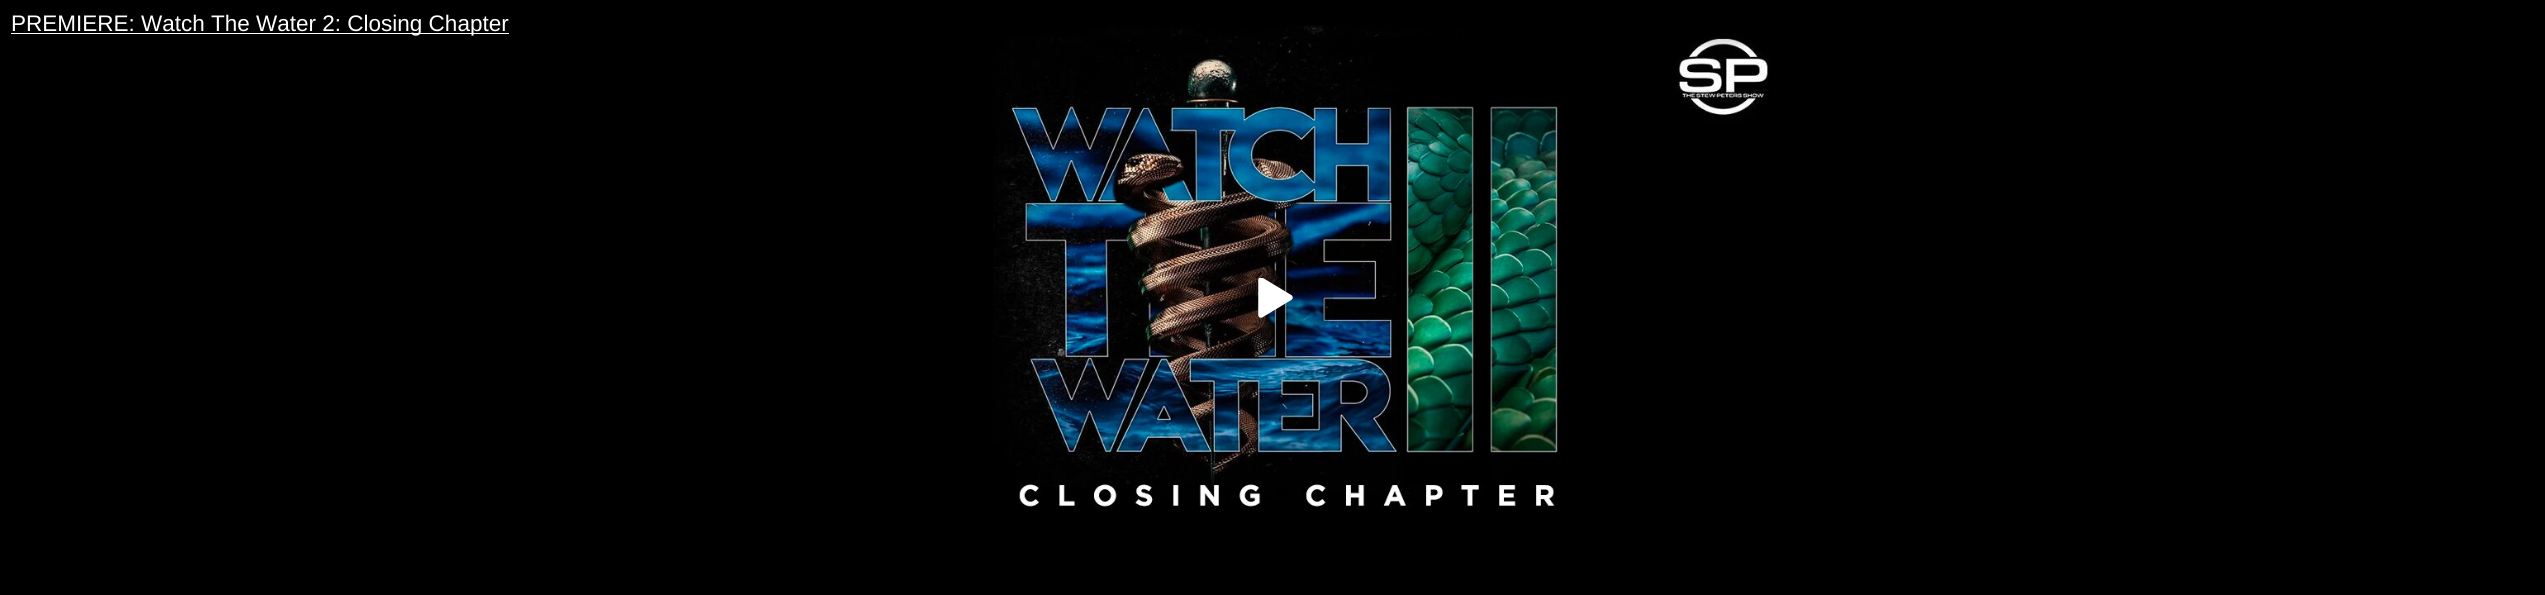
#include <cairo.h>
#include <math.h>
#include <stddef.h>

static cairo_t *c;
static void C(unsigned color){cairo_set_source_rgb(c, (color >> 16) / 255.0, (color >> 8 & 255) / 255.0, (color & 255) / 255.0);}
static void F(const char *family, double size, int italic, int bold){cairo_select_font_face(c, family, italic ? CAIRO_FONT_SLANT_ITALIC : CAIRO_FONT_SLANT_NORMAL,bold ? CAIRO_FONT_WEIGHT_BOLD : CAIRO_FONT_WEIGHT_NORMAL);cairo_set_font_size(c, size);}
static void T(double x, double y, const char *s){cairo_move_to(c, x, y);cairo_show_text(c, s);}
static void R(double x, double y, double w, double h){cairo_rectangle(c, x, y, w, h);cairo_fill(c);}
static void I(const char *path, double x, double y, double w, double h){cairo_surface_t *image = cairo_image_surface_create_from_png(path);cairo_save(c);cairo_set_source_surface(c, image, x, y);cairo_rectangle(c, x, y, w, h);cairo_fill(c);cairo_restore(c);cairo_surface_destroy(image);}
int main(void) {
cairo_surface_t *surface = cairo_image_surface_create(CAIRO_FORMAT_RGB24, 2545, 595);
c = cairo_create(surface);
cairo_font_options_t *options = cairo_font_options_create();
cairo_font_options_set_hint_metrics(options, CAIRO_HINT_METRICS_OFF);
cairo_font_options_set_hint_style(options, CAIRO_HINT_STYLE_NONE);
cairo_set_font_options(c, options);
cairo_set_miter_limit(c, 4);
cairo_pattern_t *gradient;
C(0x000000);
cairo_paint(c);
I("1.png",993,25,776,484);
gradient = cairo_pattern_create_linear(1273,0,1273,49);
cairo_pattern_add_color_stop_rgba(gradient,0,0,0,0,.7);
cairo_pattern_add_color_stop_rgba(gradient,1,0,0,0,0);
cairo_set_source(c,gradient);
cairo_pattern_destroy(gradient);
R(1179,26,569,21);
C(0xffffff);
R(11,33,498,1);
F("Liberation Sans",22.5,0,0);
T(11,31,"PREMIERE: Watch The Water 2: Closing Chapter");
cairo_set_source_rgba(c,0,0,0,0.2);
cairo_new_path(c);
cairo_arc(c,1273,298,60,0,2 * M_PI);
cairo_fill(c);
C(0xffffff);
cairo_new_path(c);
cairo_move_to(c,1290,297.5);
cairo_line_to(c,1261,280);
cairo_line_to(c,1261,315);
cairo_close_path(c);
cairo_fill(c);
cairo_save(c);
cairo_rectangle(c,1253,278,40,40);
cairo_clip(c);
cairo_new_path(c);
cairo_move_to(c,1290,297.5);
cairo_line_to(c,1261,280);
cairo_line_to(c,1261,315);
cairo_close_path(c);
cairo_set_line_width(c,5.5);
cairo_set_line_join(c,CAIRO_LINE_JOIN_ROUND);
cairo_stroke(c);
cairo_restore(c);
cairo_surface_write_to_png(surface, "o.png");
cairo_font_options_destroy(options);
cairo_destroy(c);
cairo_surface_destroy(surface);
return 0;
}
